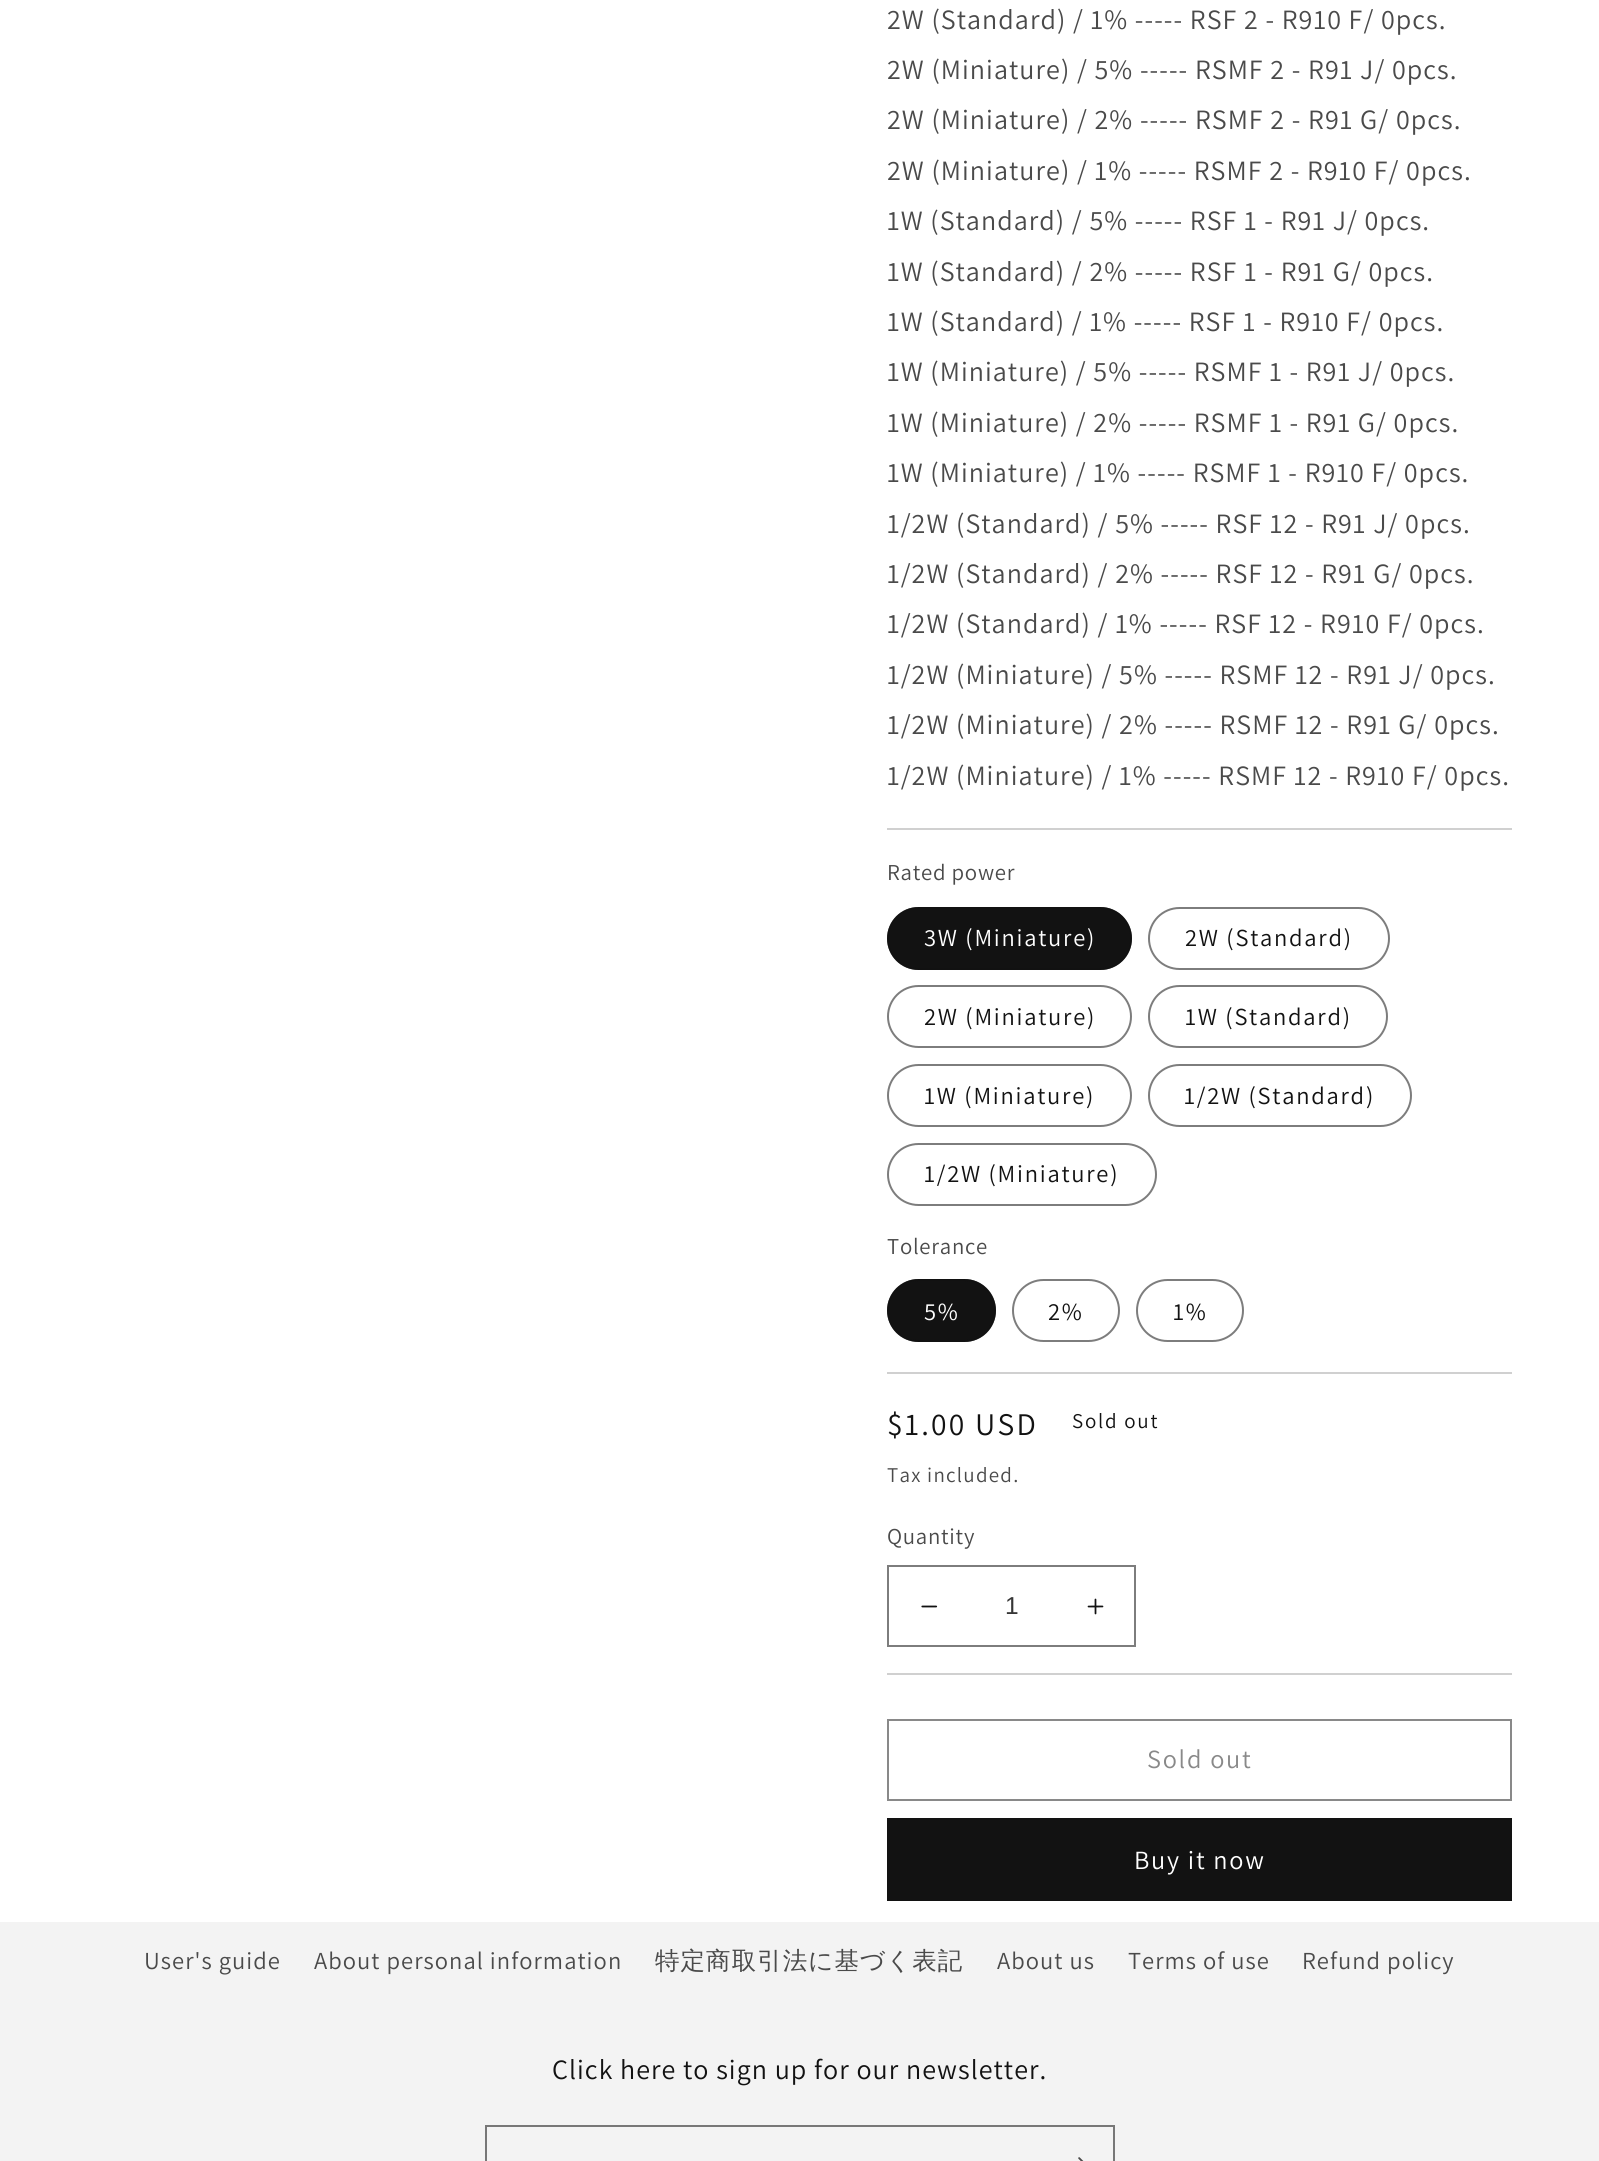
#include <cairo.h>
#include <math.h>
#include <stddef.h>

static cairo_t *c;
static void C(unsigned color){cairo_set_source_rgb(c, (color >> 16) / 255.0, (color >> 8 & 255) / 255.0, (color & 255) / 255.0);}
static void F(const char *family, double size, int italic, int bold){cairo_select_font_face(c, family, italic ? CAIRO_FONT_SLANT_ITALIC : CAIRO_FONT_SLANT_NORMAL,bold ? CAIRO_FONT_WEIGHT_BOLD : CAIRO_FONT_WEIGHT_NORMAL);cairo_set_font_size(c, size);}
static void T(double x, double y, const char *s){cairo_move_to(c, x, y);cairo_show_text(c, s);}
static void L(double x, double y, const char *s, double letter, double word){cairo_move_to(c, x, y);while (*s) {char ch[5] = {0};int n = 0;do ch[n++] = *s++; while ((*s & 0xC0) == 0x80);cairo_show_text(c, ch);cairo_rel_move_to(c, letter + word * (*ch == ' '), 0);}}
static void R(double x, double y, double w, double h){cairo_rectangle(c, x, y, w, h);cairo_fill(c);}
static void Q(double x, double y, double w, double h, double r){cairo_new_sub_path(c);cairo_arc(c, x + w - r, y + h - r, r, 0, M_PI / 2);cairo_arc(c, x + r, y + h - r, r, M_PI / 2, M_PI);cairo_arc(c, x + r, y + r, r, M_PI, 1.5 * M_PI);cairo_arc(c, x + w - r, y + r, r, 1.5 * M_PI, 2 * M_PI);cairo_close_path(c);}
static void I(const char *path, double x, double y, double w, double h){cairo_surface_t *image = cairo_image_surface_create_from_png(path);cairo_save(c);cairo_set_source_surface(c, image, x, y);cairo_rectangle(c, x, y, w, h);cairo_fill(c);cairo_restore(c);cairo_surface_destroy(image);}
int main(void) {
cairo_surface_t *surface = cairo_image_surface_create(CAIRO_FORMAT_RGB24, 1599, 2161);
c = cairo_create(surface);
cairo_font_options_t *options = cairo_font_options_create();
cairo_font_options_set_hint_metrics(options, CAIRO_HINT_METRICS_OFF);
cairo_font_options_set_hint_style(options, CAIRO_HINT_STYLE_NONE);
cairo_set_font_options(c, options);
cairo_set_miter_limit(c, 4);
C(0xffffff);
cairo_paint(c);
F("Assistant",28,0,0);
C(0x4a4a4a);
L(887,29,"2W (Standard) / 1% ----- RSF 2 - R910 F/ 0pcs.",1.05,0);
L(887,79,"2W (Miniature) / 5% ----- RSMF 2 - R91 J/ 0pcs.",1.05,0);
L(887,129,"2W (Miniature) / 2% ----- RSMF 2 - R91 G/ 0pcs.",1.05,0);
L(887,180,"2W (Miniature) / 1% ----- RSMF 2 - R910 F/ 0pcs.",1.05,0);
L(887,230,"1W (Standard) / 5% ----- RSF 1 - R91 J/ 0pcs.",1.05,0);
L(887,281,"1W (Standard) / 2% ----- RSF 1 - R91 G/ 0pcs.",1.05,0);
L(887,331,"1W (Standard) / 1% ----- RSF 1 - R910 F/ 0pcs.",1.05,0);
L(887,381,"1W (Miniature) / 5% ----- RSMF 1 - R91 J/ 0pcs.",1.05,0);
L(887,432,"1W (Miniature) / 2% ----- RSMF 1 - R91 G/ 0pcs.",1.05,0);
L(887,482,"1W (Miniature) / 1% ----- RSMF 1 - R910 F/ 0pcs.",1.05,0);
L(887,533,"1/2W (Standard) / 5% ----- RSF 12 - R91 J/ 0pcs.",1.05,0);
L(887,583,"1/2W (Standard) / 2% ----- RSF 12 - R91 G/ 0pcs.",1.05,0);
L(887,633,"1/2W (Standard) / 1% ----- RSF 12 - R910 F/ 0pcs.",1.05,0);
L(887,684,"1/2W (Miniature) / 5% ----- RSMF 12 - R91 J/ 0pcs.",1.05,0);
L(887,734,"1/2W (Miniature) / 2% ----- RSMF 12 - R91 G/ 0pcs.",1.05,0);
L(887,785,"1/2W (Miniature) / 1% ----- RSMF 12 - R910 F/ 0pcs.",1.05,0);
C(0xd0d0d0);
R(887,828,625,2);
F("Assistant",22.75,0,0);
C(0x4a4a4a);
L(887,880,"Rated power",.75,0);
C(0x121212);
Q(887,907,245,63,31.5);
cairo_fill(c);
Q(888,908,243,61,30.5);
cairo_set_source_rgba(c,0.071,0.071,0.071,0.55);
cairo_stroke(c);
F("Assistant",24.5,0,0);
C(0xffffff);
L(924,946,"3W (Miniature)",1.75,0);
Q(1149,908,240,61,30.5);
C(0x7d7d7d);
cairo_stroke(c);
C(0x121212);
L(1185,946,"2W (Standard)",1.75,0);
Q(888,986,243,61,30.5);
C(0x7d7d7d);
cairo_stroke(c);
C(0x121212);
L(924,1025,"2W (Miniature)",1.75,0);
Q(1149,986,238,61,30.5);
C(0x7d7d7d);
cairo_stroke(c);
C(0x121212);
L(1185,1025,"1W (Standard)",1.75,0);
Q(888,1065,243,61,30.5);
C(0x7d7d7d);
cairo_stroke(c);
C(0x121212);
L(924,1104,"1W (Miniature)",1.75,0);
Q(1149,1065,262,61,30.5);
C(0x7d7d7d);
cairo_stroke(c);
C(0x121212);
L(1184,1104,"1/2W (Standard)",1.75,0);
Q(888,1144,268,61,30.5);
C(0x7d7d7d);
cairo_stroke(c);
C(0x121212);
L(924,1182,"1/2W (Miniature)",1.75,0);
F("Assistant",22.75,0,0);
C(0x4a4a4a);
L(887,1254,"Tolerance",.75,0);
C(0x121212);
Q(887,1279,109,63,31.5);
cairo_fill(c);
Q(888,1280,107,61,30.5);
cairo_set_source_rgba(c,0.071,0.071,0.071,0.55);
cairo_stroke(c);
F("Assistant",24.5,0,0);
C(0xffffff);
L(924,1320,"5%",1.75,0);
Q(1013,1280,106,61,30.5);
C(0x7d7d7d);
cairo_stroke(c);
C(0x121212);
L(1048,1320,"2%",1.75,0);
Q(1137,1280,106,61,30.5);
C(0x7d7d7d);
cairo_stroke(c);
C(0x121212);
L(1173,1320,"1%",1.75,0);
C(0xd0d0d0);
R(887,1372,625,2);
F("Assistant",31.5,0,0);
C(0x121212);
L(887,1435,"$1.00 USD",2.25,0);
F("Assistant",21,0,0);
L(1072,1428,"Sold out",1.75,0);
C(0x4a4a4a);
L(887,1482,"Tax included.",1.25,0);
F("Assistant",22.75,0,0);
L(887,1544,"Quantity",.75,0);
I("1.png",921,1605,17,3);
I("2.png",1087,1598,17,17);
cairo_rectangle(c,888,1566,247,80);
C(0x7d7d7d);
cairo_stroke(c);
F("Liberation Sans",24.5,0,0);
C(0x363636);
T(1005,1614,"1");
C(0xd0d0d0);
R(887,1673,625,2);
cairo_rectangle(c,888,1720,623,80);
C(0x898989);
cairo_stroke(c);
F("Assistant",26.25,0,0);
L(1147,1768,"Sold out",1.75,0);
C(0x121212);
R(887,1818,625,83);
C(0xffffff);
L(1134,1869,"Buy it now",1.75,0);
C(0xf3f3f3);
R(0,1922,1599,239);
F("Assistant",24.5,0,0);
C(0x4a4a4a);
L(144,1969,"User's guide",1.05,0);
L(314,1969,"About personal information",1.05,0);
F("WenQuanYi Zen Hei Medium",24.5,0,0);
L(655,1969,"特定商取引法に基づく表記",1.05,0);
F("Assistant",24.5,0,0);
L(997,1969,"About us",1.05,0);
L(1128,1969,"Terms of use",1.05,0);
L(1302,1969,"Refund policy",1.05,0);
F("Assistant",28,0,0);
C(0x121212);
L(552,2079,"Click here to sign up for our newsletter.",1.05,0);
cairo_rectangle(c,486,2126,628,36);
C(0x777777);
cairo_stroke(c);
I("3.png",1078,2157,6,4);
cairo_surface_write_to_png(surface, "o.png");
cairo_font_options_destroy(options);
cairo_destroy(c);
cairo_surface_destroy(surface);
return 0;
}
